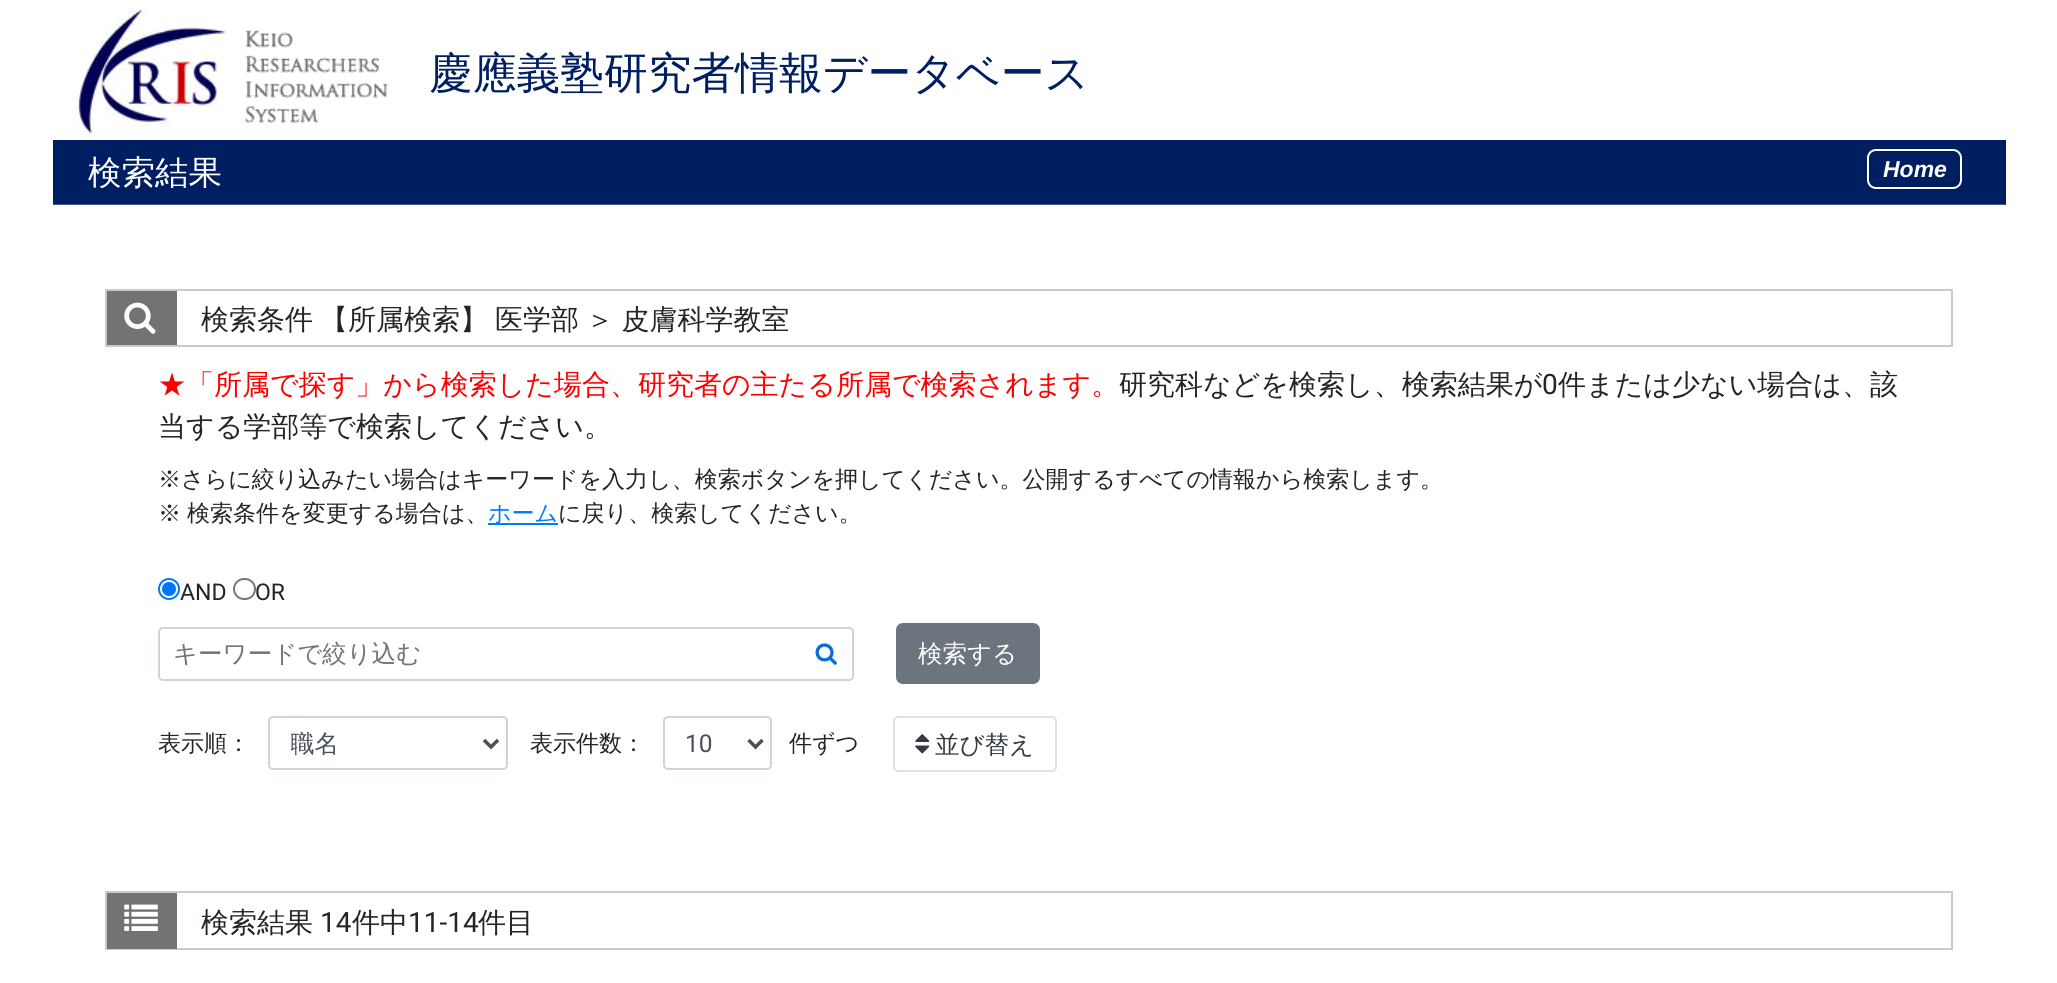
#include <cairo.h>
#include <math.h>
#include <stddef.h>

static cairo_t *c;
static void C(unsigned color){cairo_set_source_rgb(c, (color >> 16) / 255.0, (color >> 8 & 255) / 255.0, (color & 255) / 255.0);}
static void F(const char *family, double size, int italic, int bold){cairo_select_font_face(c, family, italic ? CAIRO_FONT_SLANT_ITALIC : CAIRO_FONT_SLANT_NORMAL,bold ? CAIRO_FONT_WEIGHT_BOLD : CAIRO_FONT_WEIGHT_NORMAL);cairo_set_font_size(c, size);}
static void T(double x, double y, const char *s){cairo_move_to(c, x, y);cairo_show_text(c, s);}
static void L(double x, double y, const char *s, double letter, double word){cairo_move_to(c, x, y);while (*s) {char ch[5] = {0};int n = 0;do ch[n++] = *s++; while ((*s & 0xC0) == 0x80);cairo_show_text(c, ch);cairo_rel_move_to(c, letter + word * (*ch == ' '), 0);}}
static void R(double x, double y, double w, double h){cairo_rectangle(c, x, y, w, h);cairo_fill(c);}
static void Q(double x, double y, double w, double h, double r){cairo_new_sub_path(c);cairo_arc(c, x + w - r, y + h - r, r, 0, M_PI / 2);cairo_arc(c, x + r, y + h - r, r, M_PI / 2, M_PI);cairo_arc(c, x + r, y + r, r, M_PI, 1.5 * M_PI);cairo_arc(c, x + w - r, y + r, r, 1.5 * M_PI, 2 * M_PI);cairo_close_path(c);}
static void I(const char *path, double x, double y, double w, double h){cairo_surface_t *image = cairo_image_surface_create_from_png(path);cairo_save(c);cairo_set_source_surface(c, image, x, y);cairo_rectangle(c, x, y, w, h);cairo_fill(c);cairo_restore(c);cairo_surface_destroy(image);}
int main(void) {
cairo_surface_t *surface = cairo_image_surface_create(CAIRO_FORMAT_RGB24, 2057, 983);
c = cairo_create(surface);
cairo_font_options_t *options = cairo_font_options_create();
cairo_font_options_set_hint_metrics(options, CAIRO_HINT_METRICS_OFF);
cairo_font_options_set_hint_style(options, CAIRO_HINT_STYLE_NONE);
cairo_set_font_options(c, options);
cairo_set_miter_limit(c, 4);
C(0xffffff);
cairo_paint(c);
I("1.png",71,8,317,132);
F("WenQuanYi Zen Hei Medium",43.75,0,0);
C(0x001e62);
T(429,88,"慶應義塾研究者情報データベース");
R(53,140,1953,65);
F("WenQuanYi Zen Hei Medium",33.5,0,0);
C(0xffffff);
T(88,184,"検索結果");
Q(1868,150,93,38,8);
cairo_stroke(c);
F("Liberation Sans",23,1,1);
T(1883,177,"Home");
I("2.png",53,204,1953,1);
cairo_rectangle(c,106,290,1846,56);
C(0xcacaca);
cairo_stroke(c);
C(0x737373);
R(107,291,70,54);
I("3.png",124,302,32,32);
F("WenQuanYi Zen Hei Medium",28,0,0);
C(0x212529);
T(201,329,"検索条件");
T(320,329,"【所属検索】");
T(495,329,"医学部");
L(586,329,"＞ 皮膚科学教室",0,-1);
C(0xff0000);
T(158,394,"★「所属で探す」から検索した場合、研究者の主たる所属で検索されます。");
C(0x212529);
T(1119,394,"研究科などを検索し、検索結果が");
F("Roboto",28,0,0);
T(1542,394,"0");
F("WenQuanYi Zen Hei Medium",28,0,0);
T(1558,394,"件または少ない場合は、該");
T(158,436,"当する学部等で検索してください。");
F("WenQuanYi Zen Hei Medium",23.03,0,0);
T(158,487,"※さらに絞り込みたい場合はキーワードを入力し、検索ボタンを押してください。公開するすべての情報から検索します。");
L(158,521,"※ 検索条件を変更する場合は、",0,-1);
C(0x007bff);
R(488,523,70,2);
T(488,521,"ホーム");
C(0x212529);
T(558,521,"に戻り、検索してください。");
cairo_new_path(c);
cairo_arc(c,169,589,10,0,2 * M_PI);
C(0x0075ff);
cairo_stroke(c);
cairo_arc(c,169,589,7,0,2 * M_PI);
cairo_fill(c);
F("Roboto",23.03,0,0);
C(0x212529);
T(180,600,"AND");
Q(234,579,21,20,10);
C(0x767676);
cairo_stroke(c);
C(0x212529);
T(255,600,"OR");
Q(159,628,694,52,4);
C(0xced4da);
cairo_stroke(c);
F("WenQuanYi Zen Hei Medium",24.5,0,0);
C(0x6c757d);
T(173,662,"キーワードで絞り込む");
I("4.png",815,643,22,22);
Q(897,624,142,59,6);
cairo_fill_preserve(c);
cairo_stroke(c);
C(0xffffff);
T(918,662,"検索する");
F("WenQuanYi Zen Hei Medium",23.03,0,0);
C(0x212529);
T(158,751,"表示順：");
Q(269,717,238,52,4);
C(0xced4da);
cairo_stroke(c);
cairo_new_path(c);
cairo_move_to(c,484,740);
cairo_line_to(c,491,747);
cairo_line_to(c,498,740);
C(0x495057);
cairo_set_line_width(c,3.5);
cairo_stroke(c);
cairo_save(c);
cairo_rectangle(c,291,728,173,32);
cairo_clip(c);
F("WenQuanYi Zen Hei Medium",24.5,0,0);
T(290,752,"職名");
cairo_restore(c);
C(0x212529);
T(530,751,"表示件数：");
Q(664,717,107,52,4);
C(0xced4da);
cairo_set_line_width(c,2);
cairo_stroke(c);
cairo_new_path(c);
cairo_move_to(c,748.5,740);
cairo_line_to(c,755.5,747);
cairo_line_to(c,762.5,740);
C(0x495057);
cairo_set_line_width(c,3.5);
cairo_stroke(c);
F("Roboto",24.5,0,0);
T(685,752,"10");
F("WenQuanYi Zen Hei Medium",23.03,0,0);
C(0x212529);
T(789,751,"件ずつ");
Q(894,717,162,54,4);
C(0xdee2e6);
cairo_set_line_width(c,2);
cairo_stroke(c);
I("5.png",915,734,15,20);
F("WenQuanYi Zen Hei Medium",24.5,0,0);
C(0x343a40);
T(935,753,"並び替え");
cairo_rectangle(c,106,892,1846,57);
C(0xcacaca);
cairo_stroke(c);
C(0x737373);
R(107,893,70,56);
I("6.png",124,904,34,27);
F("WenQuanYi Zen Hei Medium",28,0,0);
C(0x212529);
T(201,932,"検索結果");
F("Roboto",28,0,0);
T(320,932,"14");
F("WenQuanYi Zen Hei Medium",28,0,0);
T(352,932,"件中");
F("Roboto",28,0,0);
T(408,932,"11-14");
F("WenQuanYi Zen Hei Medium",28,0,0);
T(478,932,"件目");
cairo_surface_write_to_png(surface, "o.png");
cairo_font_options_destroy(options);
cairo_destroy(c);
cairo_surface_destroy(surface);
return 0;
}
